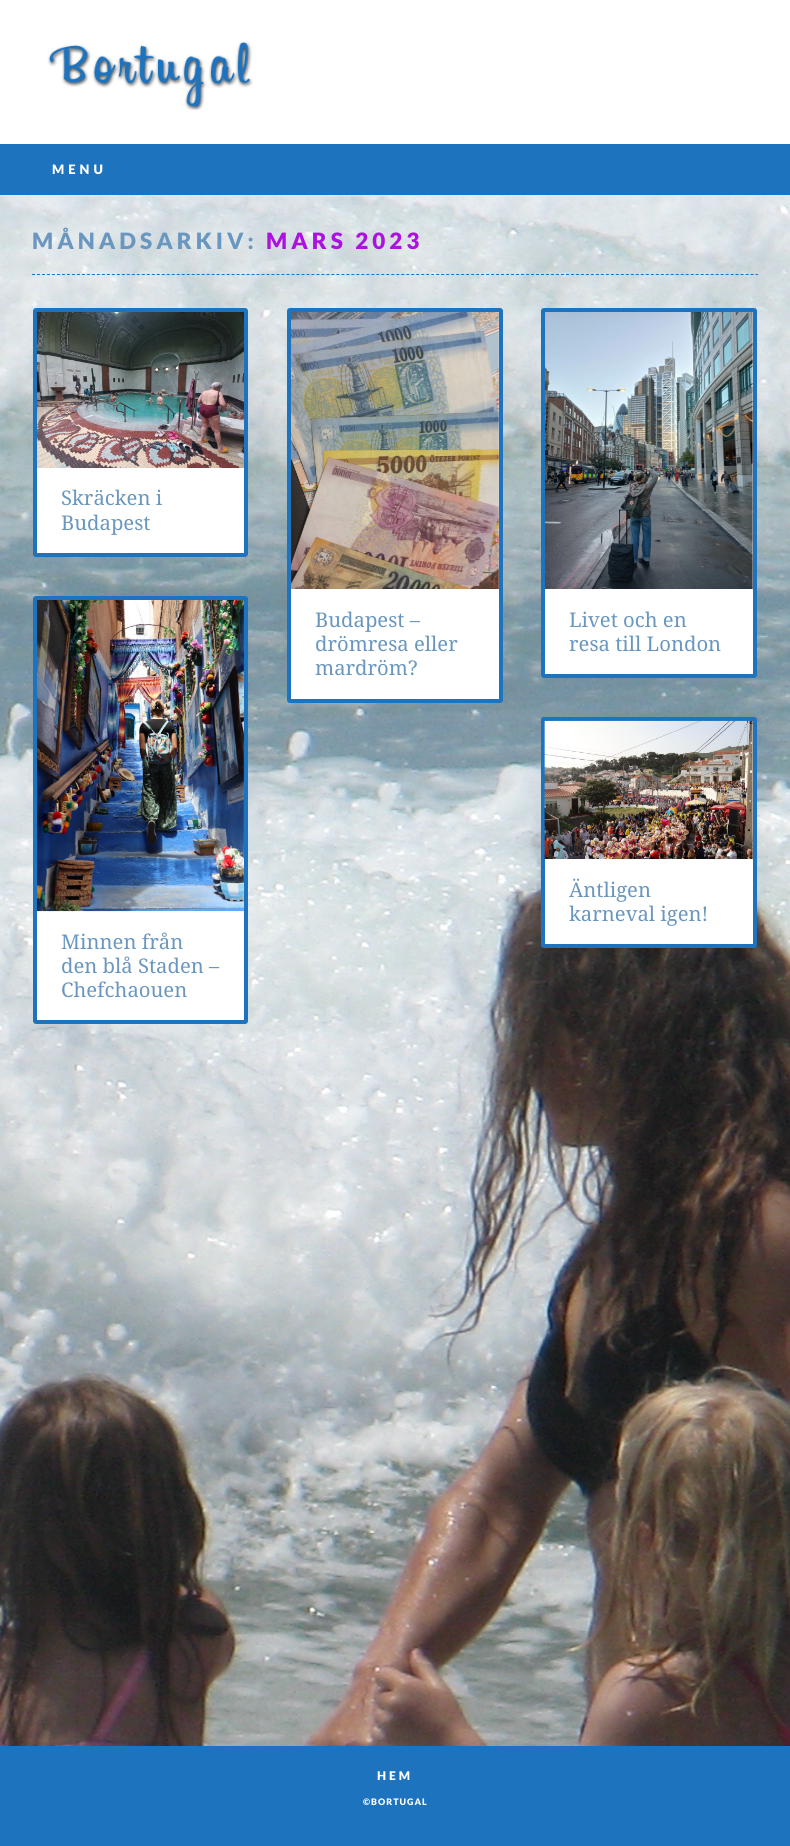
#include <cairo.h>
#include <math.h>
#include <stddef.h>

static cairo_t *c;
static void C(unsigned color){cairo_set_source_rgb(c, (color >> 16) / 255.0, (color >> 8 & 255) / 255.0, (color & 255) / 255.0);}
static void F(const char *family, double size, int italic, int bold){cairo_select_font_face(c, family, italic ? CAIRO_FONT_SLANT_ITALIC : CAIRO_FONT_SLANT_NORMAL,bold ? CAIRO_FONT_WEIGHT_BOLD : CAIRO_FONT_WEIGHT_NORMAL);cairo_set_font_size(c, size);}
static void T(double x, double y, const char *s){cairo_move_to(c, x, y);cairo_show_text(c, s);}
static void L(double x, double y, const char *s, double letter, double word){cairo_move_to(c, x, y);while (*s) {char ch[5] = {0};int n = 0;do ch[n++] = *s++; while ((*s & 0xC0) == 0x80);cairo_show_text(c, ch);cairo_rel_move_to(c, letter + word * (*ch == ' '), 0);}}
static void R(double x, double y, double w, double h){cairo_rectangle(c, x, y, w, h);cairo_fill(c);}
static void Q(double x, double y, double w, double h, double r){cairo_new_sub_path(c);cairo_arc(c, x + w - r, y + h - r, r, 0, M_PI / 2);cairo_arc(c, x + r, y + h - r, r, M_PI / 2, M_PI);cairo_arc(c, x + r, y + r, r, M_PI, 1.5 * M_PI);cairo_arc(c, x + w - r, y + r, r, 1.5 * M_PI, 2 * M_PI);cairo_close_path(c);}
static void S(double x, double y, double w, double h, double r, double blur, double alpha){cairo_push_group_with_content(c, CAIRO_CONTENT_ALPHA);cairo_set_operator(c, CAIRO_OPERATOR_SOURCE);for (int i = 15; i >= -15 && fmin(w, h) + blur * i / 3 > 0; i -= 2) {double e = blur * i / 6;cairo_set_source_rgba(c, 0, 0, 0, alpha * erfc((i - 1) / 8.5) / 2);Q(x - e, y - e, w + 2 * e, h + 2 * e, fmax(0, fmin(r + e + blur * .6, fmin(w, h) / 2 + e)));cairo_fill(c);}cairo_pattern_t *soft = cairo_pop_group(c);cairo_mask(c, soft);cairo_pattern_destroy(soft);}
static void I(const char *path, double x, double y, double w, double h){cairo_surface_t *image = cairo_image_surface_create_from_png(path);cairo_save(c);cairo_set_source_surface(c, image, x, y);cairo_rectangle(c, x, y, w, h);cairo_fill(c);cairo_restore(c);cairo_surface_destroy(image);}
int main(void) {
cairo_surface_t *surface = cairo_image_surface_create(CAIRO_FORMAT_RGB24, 790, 1846);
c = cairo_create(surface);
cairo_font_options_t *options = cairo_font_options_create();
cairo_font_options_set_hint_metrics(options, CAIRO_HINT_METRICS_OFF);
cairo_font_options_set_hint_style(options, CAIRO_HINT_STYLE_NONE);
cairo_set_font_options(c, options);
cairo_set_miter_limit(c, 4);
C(0xffffff);
cairo_paint(c);
I("1.png",0,195,790,1551);
C(0xe7e7e7);
S(0,1,790,195,0,1,1);
C(0xffffff);
R(0,0,790,144);
I("2.png",47,41,206,69);
C(0x1e73be);
R(0,144,790,51);
F("Lato Black",13,0,0);
C(0xffffff);
L(52,174,"MENU",4,0);
cairo_new_path(c);
cairo_move_to(c,32,274.5);
cairo_line_to(c,758,274.5);
C(0x1e73be);
cairo_set_line_width(c,1);
cairo_set_dash(c,(double[]){3,1.99},2,0);
cairo_stroke(c);
F("Lato Black",22.5,0,0);
C(0x6997bf);
L(32,249,"MÅNADSARKIV:",4,0);
C(0xac11e0);
L(266,249,"MARS 2023",4,0);
C(0xffffff);
Q(35,310,211,245,1);
cairo_fill_preserve(c);
C(0x1e73be);
cairo_set_line_width(c,4);
cairo_set_dash(c,NULL,0,0);
cairo_stroke(c);
I("3.png",37,312,207,156);
F("Droid Serif",20.25,0,0);
C(0x6997bf);
T(61,505,"Skräcken i");
T(61,530,"Budapest");
C(0xffffff);
Q(289,310,212,391,1);
cairo_fill_preserve(c);
C(0x1e73be);
cairo_stroke(c);
I("4.png",291,312,208,277);
C(0x6997bf);
T(315,627,"Budapest –");
T(315,651,"drömresa eller");
T(315,675,"mardröm?");
C(0xffffff);
Q(543,310,212,366,1);
cairo_fill_preserve(c);
C(0x1e73be);
cairo_stroke(c);
I("5.png",545,312,208,277);
C(0x6997bf);
T(569,627,"Livet och en");
T(569,651,"resa till London");
C(0xffffff);
Q(543,719,212,227,1);
cairo_fill_preserve(c);
C(0x1e73be);
cairo_stroke(c);
I("6.png",544,720,209,139);
C(0x6997bf);
T(569,897,"Äntligen");
T(569,921,"karneval igen!");
C(0xffffff);
Q(35,598,211,424,1);
cairo_fill_preserve(c);
C(0x1e73be);
cairo_stroke(c);
I("7.png",37,600,207,312);
C(0x6997bf);
T(61,949,"Minnen från");
T(61,973,"den blå Staden –");
T(61,997,"Chefchaouen");
C(0x1e73be);
R(0,1746,790,100);
F("Lato Black",12,0,0);
C(0xffffff);
L(377,1780,"HEM",3,0);
F("Lato Black",9,0,0);
L(363,1805,"©BORTUGAL",1,0);
cairo_surface_write_to_png(surface, "o.png");
cairo_font_options_destroy(options);
cairo_destroy(c);
cairo_surface_destroy(surface);
return 0;
}
